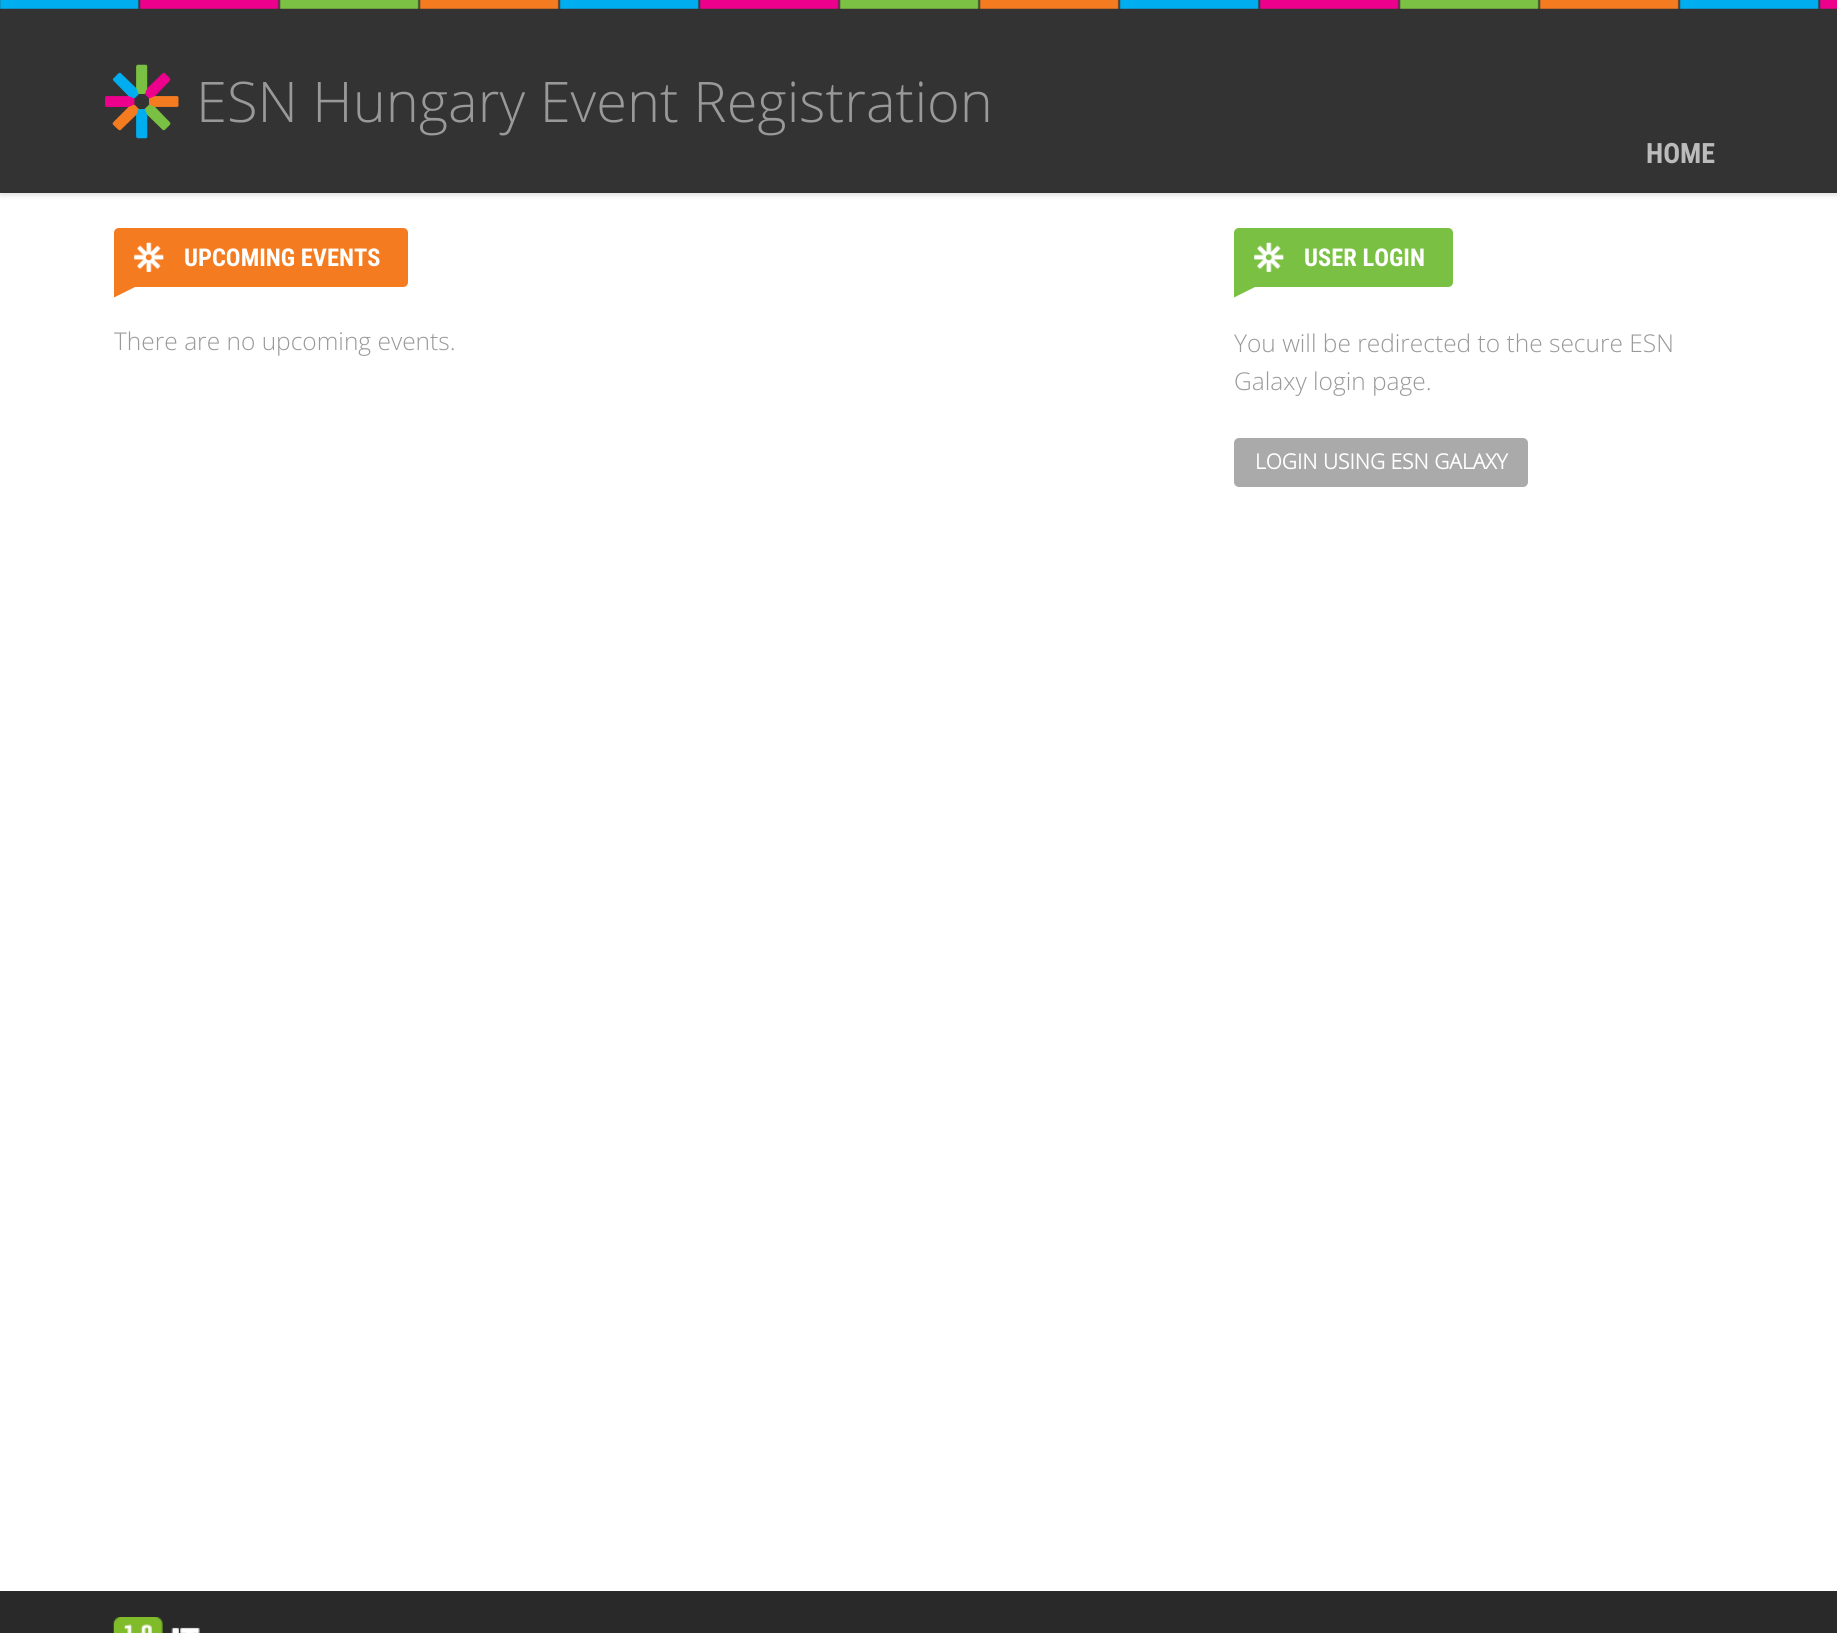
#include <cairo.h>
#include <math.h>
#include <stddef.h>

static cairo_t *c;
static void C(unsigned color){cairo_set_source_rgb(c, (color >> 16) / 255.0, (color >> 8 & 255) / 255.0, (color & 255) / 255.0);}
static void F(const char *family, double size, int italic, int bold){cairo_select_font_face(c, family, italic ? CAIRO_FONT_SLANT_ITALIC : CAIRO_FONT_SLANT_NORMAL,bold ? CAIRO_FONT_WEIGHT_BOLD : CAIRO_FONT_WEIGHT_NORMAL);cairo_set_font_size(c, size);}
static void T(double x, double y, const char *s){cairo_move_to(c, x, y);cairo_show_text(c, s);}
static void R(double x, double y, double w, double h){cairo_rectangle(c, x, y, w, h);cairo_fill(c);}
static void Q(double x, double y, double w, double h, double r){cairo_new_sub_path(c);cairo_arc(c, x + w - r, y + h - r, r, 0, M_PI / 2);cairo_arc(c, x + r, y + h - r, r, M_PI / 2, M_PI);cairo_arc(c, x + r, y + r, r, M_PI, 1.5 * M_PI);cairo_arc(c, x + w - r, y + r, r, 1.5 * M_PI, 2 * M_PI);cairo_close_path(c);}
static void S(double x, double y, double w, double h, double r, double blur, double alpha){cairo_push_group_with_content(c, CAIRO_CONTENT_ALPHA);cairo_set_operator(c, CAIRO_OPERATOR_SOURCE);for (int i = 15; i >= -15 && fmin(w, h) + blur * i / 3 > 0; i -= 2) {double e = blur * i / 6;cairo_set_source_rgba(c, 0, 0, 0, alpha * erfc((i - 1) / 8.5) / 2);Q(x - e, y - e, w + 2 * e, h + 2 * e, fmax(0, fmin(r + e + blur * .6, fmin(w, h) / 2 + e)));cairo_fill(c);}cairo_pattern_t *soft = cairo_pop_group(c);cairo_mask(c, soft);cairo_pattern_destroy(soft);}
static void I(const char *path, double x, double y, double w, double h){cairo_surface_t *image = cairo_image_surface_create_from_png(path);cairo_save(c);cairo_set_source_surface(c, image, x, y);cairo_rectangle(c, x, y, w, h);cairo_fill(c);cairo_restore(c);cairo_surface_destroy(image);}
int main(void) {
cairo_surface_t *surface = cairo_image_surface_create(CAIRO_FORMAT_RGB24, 1837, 1633);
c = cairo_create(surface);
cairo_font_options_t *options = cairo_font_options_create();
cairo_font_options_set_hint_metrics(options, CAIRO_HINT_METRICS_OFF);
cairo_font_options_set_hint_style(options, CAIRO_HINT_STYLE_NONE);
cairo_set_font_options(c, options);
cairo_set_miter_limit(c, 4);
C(0xffffff);
cairo_paint(c);
C(0x000000);
S(0,4,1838,192,0,2,.1);
C(0x333333);
R(0,0,1837,193);
I("1.png",0,0,1837,9);
I("2.png",105,64,74,75);
F("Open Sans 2 Light",56,0,0);
C(0x999999);
T(196,122,"ESN Hungary Event Registration");
F("Roboto Condensed",28,0,1);
C(0xbbbbbb);
T(1646,163,"HOME");
C(0xf57b20);
cairo_new_path(c);
cairo_move_to(c,119,228);
cairo_line_to(c,403,228);
cairo_curve_to(c,406,228,408,230,408,233);
cairo_line_to(c,408,282);
cairo_curve_to(c,408,285,406,287,403,287);
cairo_line_to(c,114,287);
cairo_line_to(c,114,233);
cairo_curve_to(c,114,230,116,228,119,228);
cairo_close_path(c);
cairo_fill(c);
I("3.png",134,242,30,30);
F("Roboto Condensed",24.5,0,1);
C(0xffffff);
T(184,266,"UPCOMING EVENTS");
C(0xf57b20);
cairo_new_path(c);
cairo_move_to(c,114,287);
cairo_line_to(c,135,287);
cairo_line_to(c,114,297.5);
cairo_close_path(c);
cairo_fill(c);
F("Open Sans Light",24.5,0,0);
C(0x999999);
T(114,350,"There are no upcoming events.");
C(0x7ac143);
cairo_new_path(c);
cairo_move_to(c,1239,228);
cairo_line_to(c,1448,228);
cairo_curve_to(c,1451,228,1453,230,1453,233);
cairo_line_to(c,1453,282);
cairo_curve_to(c,1453,285,1451,287,1448,287);
cairo_line_to(c,1234,287);
cairo_line_to(c,1234,233);
cairo_curve_to(c,1234,230,1236,228,1239,228);
cairo_close_path(c);
cairo_fill(c);
I("4.png",1254,242,30,30);
F("Roboto Condensed",24.5,0,1);
C(0xffffff);
T(1304,266,"USER LOGIN");
C(0x7ac143);
cairo_new_path(c);
cairo_move_to(c,1234,287);
cairo_line_to(c,1255,287);
cairo_line_to(c,1234,297.5);
cairo_close_path(c);
cairo_fill(c);
F("Open Sans Light",24.5,0,0);
C(0x999999);
T(1234,352,"You will be redirected to the secure ESN");
T(1234,390,"Galaxy login page.");
C(0xaaaaaa);
Q(1234,438,294,49,5);
cairo_fill(c);
F("Open Sans",21,0,1);
C(0xffffff);
T(1255,469,"LOGIN USING ESN GALAXY");
C(0x292929);
R(0,1591,1837,42);
I("5.png",113,1617,87,16);
cairo_surface_write_to_png(surface, "o.png");
cairo_font_options_destroy(options);
cairo_destroy(c);
cairo_surface_destroy(surface);
return 0;
}
